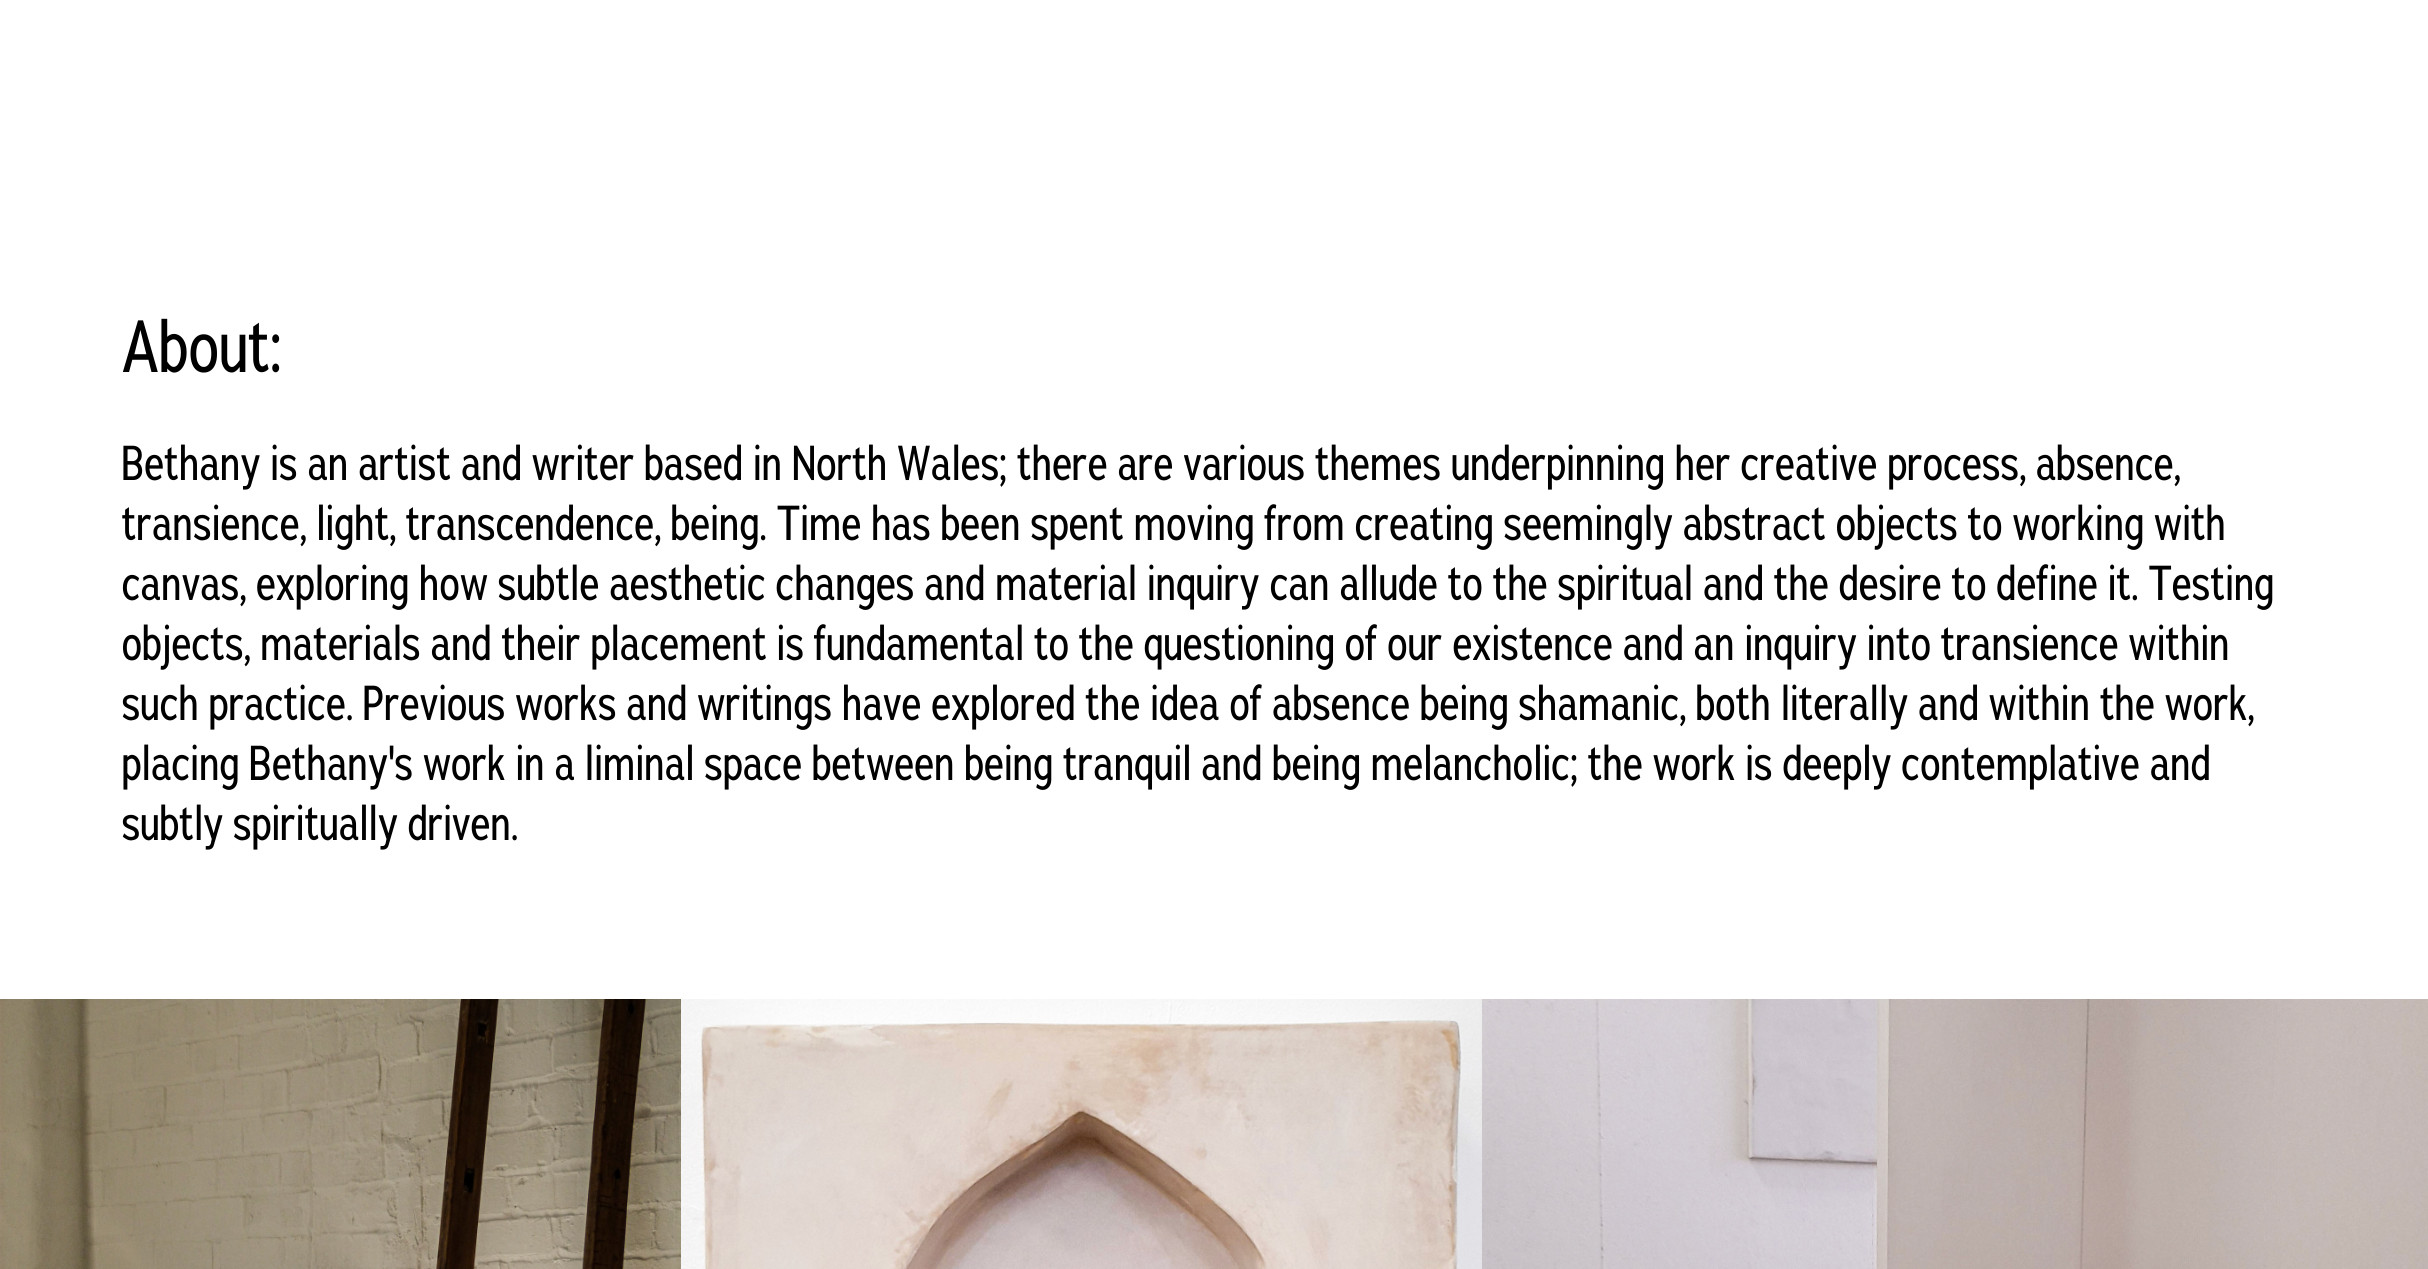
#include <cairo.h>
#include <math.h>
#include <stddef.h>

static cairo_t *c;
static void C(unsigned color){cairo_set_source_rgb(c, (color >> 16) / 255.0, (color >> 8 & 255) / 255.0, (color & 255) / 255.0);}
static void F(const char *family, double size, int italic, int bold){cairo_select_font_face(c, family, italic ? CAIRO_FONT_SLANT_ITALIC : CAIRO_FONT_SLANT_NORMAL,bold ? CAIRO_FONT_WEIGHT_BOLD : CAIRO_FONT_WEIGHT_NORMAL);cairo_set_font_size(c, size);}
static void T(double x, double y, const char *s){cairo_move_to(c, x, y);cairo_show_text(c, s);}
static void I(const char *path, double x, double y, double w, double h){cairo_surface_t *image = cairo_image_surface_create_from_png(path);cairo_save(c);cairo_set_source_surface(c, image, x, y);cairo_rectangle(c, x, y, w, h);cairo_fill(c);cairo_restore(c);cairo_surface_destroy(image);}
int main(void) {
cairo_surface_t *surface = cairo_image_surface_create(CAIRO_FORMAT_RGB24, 2428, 1269);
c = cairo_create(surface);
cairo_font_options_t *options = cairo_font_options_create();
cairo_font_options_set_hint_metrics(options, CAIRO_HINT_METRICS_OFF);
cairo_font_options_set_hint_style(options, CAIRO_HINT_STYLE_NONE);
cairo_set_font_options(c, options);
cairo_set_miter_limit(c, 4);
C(0xffffff);
cairo_paint(c);
F("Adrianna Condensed",72,0,0);
C(0x000000);
T(122,372,"About:");
F("Adrianna Condensed",48,0,0);
T(122,480,"Bethany is an artist and writer based in North Wales; there are various themes underpinning her creative process, absence,");
T(122,540,"transience, light, transcendence, being. Time has been spent moving from creating seemingly abstract objects to working with");
T(122,600,"canvas, exploring how subtle aesthetic changes and material inquiry");
T(1270,600,"can allude to the spiritual and the desire to define it. Testing");
T(122,660,"objects, materials and their placement is fundamental to the questioning of our existence and an inquiry into transience within");
T(122,720,"such practice. Previous works and writings have explored the idea of absence being shamanic, both literally and within the work,");
T(122,780,"placing Bethany's work in a liminal space between being tranquil and being melancholic; the work is deeply contemplative and");
T(122,840,"subtly spiritually driven.");
I("1.png",0,999,681,270);
I("2.png",681,999,801,270);
I("3.png",1482,999,946,270);
cairo_surface_write_to_png(surface, "o.png");
cairo_font_options_destroy(options);
cairo_destroy(c);
cairo_surface_destroy(surface);
return 0;
}
